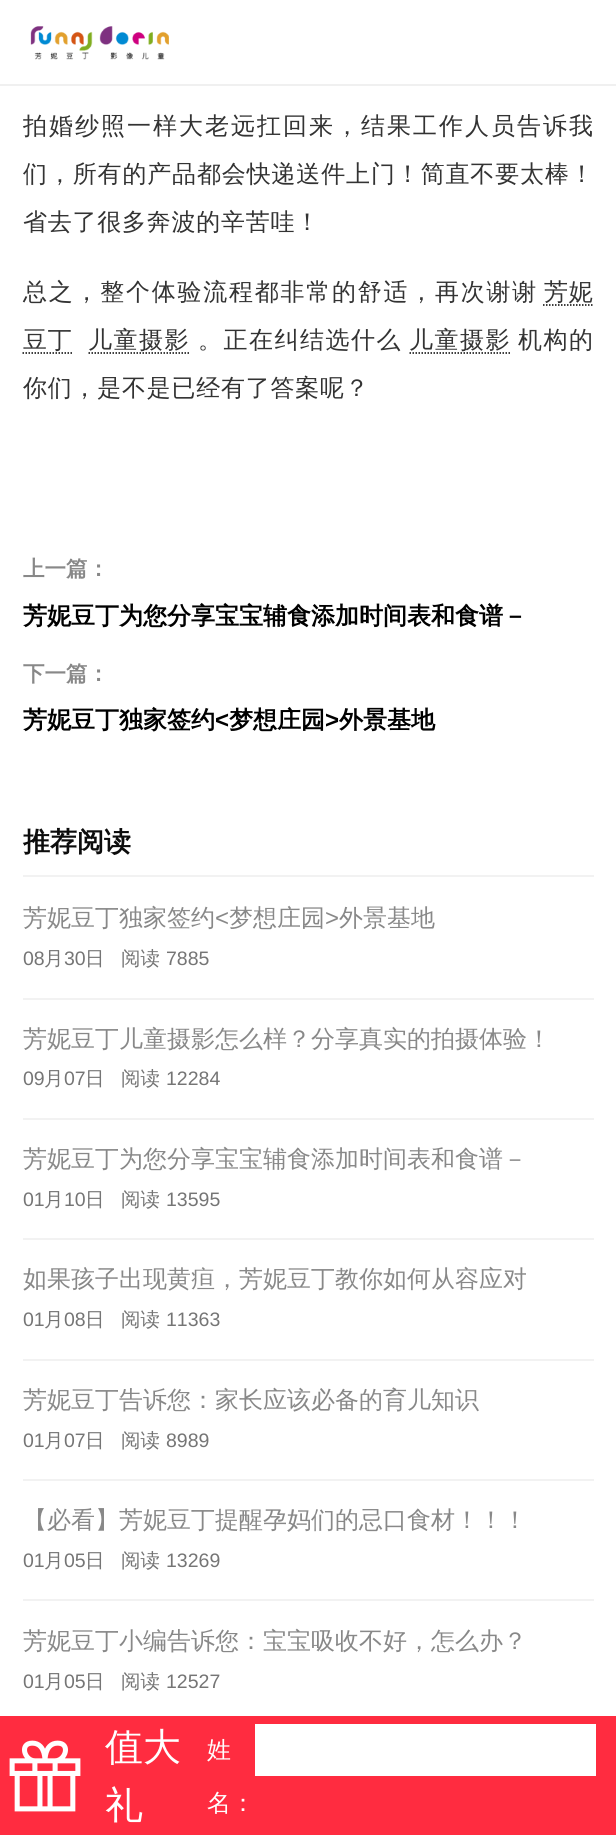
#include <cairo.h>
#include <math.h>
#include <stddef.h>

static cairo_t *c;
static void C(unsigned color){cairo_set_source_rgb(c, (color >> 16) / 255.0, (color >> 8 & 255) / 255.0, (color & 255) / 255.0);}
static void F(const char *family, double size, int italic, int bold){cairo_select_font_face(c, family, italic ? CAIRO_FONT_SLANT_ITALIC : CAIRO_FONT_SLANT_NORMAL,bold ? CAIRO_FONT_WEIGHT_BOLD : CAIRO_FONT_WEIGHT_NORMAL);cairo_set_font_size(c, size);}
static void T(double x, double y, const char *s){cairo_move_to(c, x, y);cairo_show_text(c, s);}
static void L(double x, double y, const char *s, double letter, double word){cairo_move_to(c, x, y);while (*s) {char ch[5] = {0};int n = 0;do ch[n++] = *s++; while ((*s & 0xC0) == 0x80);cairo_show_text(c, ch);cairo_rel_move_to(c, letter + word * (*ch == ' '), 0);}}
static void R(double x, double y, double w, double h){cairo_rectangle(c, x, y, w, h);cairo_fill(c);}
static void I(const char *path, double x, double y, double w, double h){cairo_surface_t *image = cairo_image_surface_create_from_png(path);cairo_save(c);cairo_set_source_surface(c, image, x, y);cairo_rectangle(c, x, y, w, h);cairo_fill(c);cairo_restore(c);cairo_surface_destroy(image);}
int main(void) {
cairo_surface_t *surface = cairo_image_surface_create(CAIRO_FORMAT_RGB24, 616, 1835);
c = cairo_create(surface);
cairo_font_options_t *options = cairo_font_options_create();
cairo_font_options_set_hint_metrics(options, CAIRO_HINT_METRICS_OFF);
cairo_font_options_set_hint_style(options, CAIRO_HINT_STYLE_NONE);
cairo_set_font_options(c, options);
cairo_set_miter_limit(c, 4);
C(0xffffff);
cairo_paint(c);
C(0xf0f0f0);
R(0,84,616,2);
I("1.png",30,26,139,34);
F("WenQuanYi Zen Hei Medium",24,0,0);
C(0x333333);
L(23,134,"拍婚纱照一样大老远扛回来，结果工作人员告诉我",2,0);
L(23,182,"们，所有的产品都会快递送件上门！简直不要太棒！",.85,0);
L(23,230,"省去了很多奔波的辛苦哇！",.75,0);
L(23,300,"总之，整个体验流程都非常的舒适，再次谢谢",1.75,0);
L(544,300,"芳妮",.75,0);
cairo_new_path(c);
cairo_move_to(c,543,305);
cairo_line_to(c,594,305);
C(0x000000);
cairo_set_line_width(c,1.5);
cairo_set_dash(c,(double[]){1.5,1.5},2,0);
cairo_stroke(c);
C(0x333333);
L(23,348,"豆丁",.75,0);
cairo_new_path(c);
cairo_move_to(c,22.5,353);
cairo_line_to(c,73.5,353);
C(0x000000);
cairo_stroke(c);
C(0x333333);
L(88,348,"儿童摄影",1.5,0);
cairo_new_path(c);
cairo_move_to(c,88.5,353);
cairo_line_to(c,190.5,353);
C(0x000000);
cairo_stroke(c);
C(0x333333);
L(198,348,"。正在纠结选什么",1.5,0);
L(409,348,"儿童摄影",1.5,0);
cairo_new_path(c);
cairo_move_to(c,409.5,353);
cairo_line_to(c,511.5,353);
C(0x000000);
cairo_stroke(c);
C(0x333333);
L(518,348,"机构的",1.5,0);
L(23,396,"你们，是不是已经有了答案呢？",.75,0);
F("WenQuanYi Zen Hei",21.5,0,1);
C(0x888888);
T(23,576,"上一篇：");
F("WenQuanYi Zen Hei",24,0,1);
C(0x000000);
T(23,624,"芳妮豆丁为您分享宝宝辅食添加时间表和食谱－");
F("WenQuanYi Zen Hei",21.5,0,1);
C(0x888888);
T(23,681,"下一篇：");
F("WenQuanYi Zen Hei",24,0,1);
C(0x000000);
T(23,728,"芳妮豆丁独家签约");
F("Liberation Sans",24,0,1);
T(215,728,"<");
F("WenQuanYi Zen Hei",24,0,1);
T(229,728,"梦想庄园");
F("Liberation Sans",24,0,1);
T(325,728,">");
F("WenQuanYi Zen Hei",24,0,1);
T(339,728,"外景基地");
C(0xf2f2f2);
R(23,875,571,2);
F("WenQuanYi Zen Hei",27,0,1);
C(0x0c0c0c);
T(23,851,"推荐阅读");
C(0xf2f2f2);
R(23,998,571,2);
F("WenQuanYi Zen Hei Medium",24,0,0);
C(0x888888);
T(23,926,"芳妮豆丁独家签约");
F("Liberation Sans",24,0,0);
T(215,926,"<");
F("WenQuanYi Zen Hei Medium",24,0,0);
T(229,926,"梦想庄园");
F("Liberation Sans",24,0,0);
T(325,926,">");
F("WenQuanYi Zen Hei Medium",24,0,0);
T(339,926,"外景基地");
F("Liberation Sans",19.5,0,0);
C(0x757575);
T(23,965,"08");
F("WenQuanYi Zen Hei Medium",19.5,0,0);
T(44,965,"月");
F("Liberation Sans",19.5,0,0);
T(64,965,"30");
F("WenQuanYi Zen Hei Medium",19.5,0,0);
T(85,965,"日");
T(121,965,"阅读");
F("Liberation Sans",19.5,0,0);
T(166,965,"7885");
C(0xf2f2f2);
R(23,1118,571,2);
F("WenQuanYi Zen Hei Medium",24,0,0);
C(0x888888);
T(23,1047,"芳妮豆丁儿童摄影怎么样？分享真实的拍摄体验！");
F("Liberation Sans",19.5,0,0);
C(0x757575);
T(23,1085,"09");
F("WenQuanYi Zen Hei Medium",19.5,0,0);
T(44,1085,"月");
F("Liberation Sans",19.5,0,0);
T(64,1085,"07");
F("WenQuanYi Zen Hei Medium",19.5,0,0);
T(85,1085,"日");
T(121,1085,"阅读");
F("Liberation Sans",19.5,0,0);
T(166,1085,"12284");
C(0xf2f2f2);
R(23,1238,571,2);
F("WenQuanYi Zen Hei Medium",24,0,0);
C(0x888888);
T(23,1167,"芳妮豆丁为您分享宝宝辅食添加时间表和食谱－");
F("Liberation Sans",19.5,0,0);
C(0x757575);
T(23,1206,"01");
F("WenQuanYi Zen Hei Medium",19.5,0,0);
T(44,1206,"月");
F("Liberation Sans",19.5,0,0);
T(64,1206,"10");
F("WenQuanYi Zen Hei Medium",19.5,0,0);
T(85,1206,"日");
T(121,1206,"阅读");
F("Liberation Sans",19.5,0,0);
T(166,1206,"13595");
C(0xf2f2f2);
R(23,1359,571,2);
F("WenQuanYi Zen Hei Medium",24,0,0);
C(0x888888);
T(23,1287,"如果孩子出现黄疸，芳妮豆丁教你如何从容应对");
F("Liberation Sans",19.5,0,0);
C(0x757575);
T(23,1326,"01");
F("WenQuanYi Zen Hei Medium",19.5,0,0);
T(44,1326,"月");
F("Liberation Sans",19.5,0,0);
T(64,1326,"08");
F("WenQuanYi Zen Hei Medium",19.5,0,0);
T(85,1326,"日");
T(121,1326,"阅读");
F("Liberation Sans",19.5,0,0);
T(166,1326,"11363");
C(0xf2f2f2);
R(23,1479,571,2);
F("WenQuanYi Zen Hei Medium",24,0,0);
C(0x888888);
T(23,1408,"芳妮豆丁告诉您：家长应该必备的育儿知识");
F("Liberation Sans",19.5,0,0);
C(0x757575);
T(23,1447,"01");
F("WenQuanYi Zen Hei Medium",19.5,0,0);
T(44,1447,"月");
F("Liberation Sans",19.5,0,0);
T(64,1447,"07");
F("WenQuanYi Zen Hei Medium",19.5,0,0);
T(85,1447,"日");
T(121,1447,"阅读");
F("Liberation Sans",19.5,0,0);
T(166,1447,"8989");
C(0xf2f2f2);
R(23,1599,571,2);
F("WenQuanYi Zen Hei Medium",24,0,0);
C(0x888888);
T(23,1528,"【必看】芳妮豆丁提醒孕妈们的忌口食材！！！");
F("Liberation Sans",19.5,0,0);
C(0x757575);
T(23,1567,"01");
F("WenQuanYi Zen Hei Medium",19.5,0,0);
T(44,1567,"月");
F("Liberation Sans",19.5,0,0);
T(64,1567,"05");
F("WenQuanYi Zen Hei Medium",19.5,0,0);
T(85,1567,"日");
T(121,1567,"阅读");
F("Liberation Sans",19.5,0,0);
T(166,1567,"13269");
F("WenQuanYi Zen Hei Medium",24,0,0);
C(0x888888);
T(23,1649,"芳妮豆丁小编告诉您：宝宝吸收不好，怎么办？");
F("Liberation Sans",19.5,0,0);
C(0x757575);
T(23,1688,"01");
F("WenQuanYi Zen Hei Medium",19.5,0,0);
T(44,1688,"月");
F("Liberation Sans",19.5,0,0);
T(64,1688,"05");
F("WenQuanYi Zen Hei Medium",19.5,0,0);
T(85,1688,"日");
T(121,1688,"阅读");
F("Liberation Sans",19.5,0,0);
T(166,1688,"12527");
C(0xff2c40);
R(0,1716,616,119);
I("2.png",9,1740,72,72);
F("WenQuanYi Zen Hei Medium",38,0,0);
C(0xffffff);
T(105,1760,"值大");
T(105,1818,"礼");
F("WenQuanYi Zen Hei Medium",24,0,0);
T(207,1758,"姓");
T(207,1811,"名：");
R(255,1724,341,52);
cairo_surface_write_to_png(surface, "o.png");
cairo_font_options_destroy(options);
cairo_destroy(c);
cairo_surface_destroy(surface);
return 0;
}
